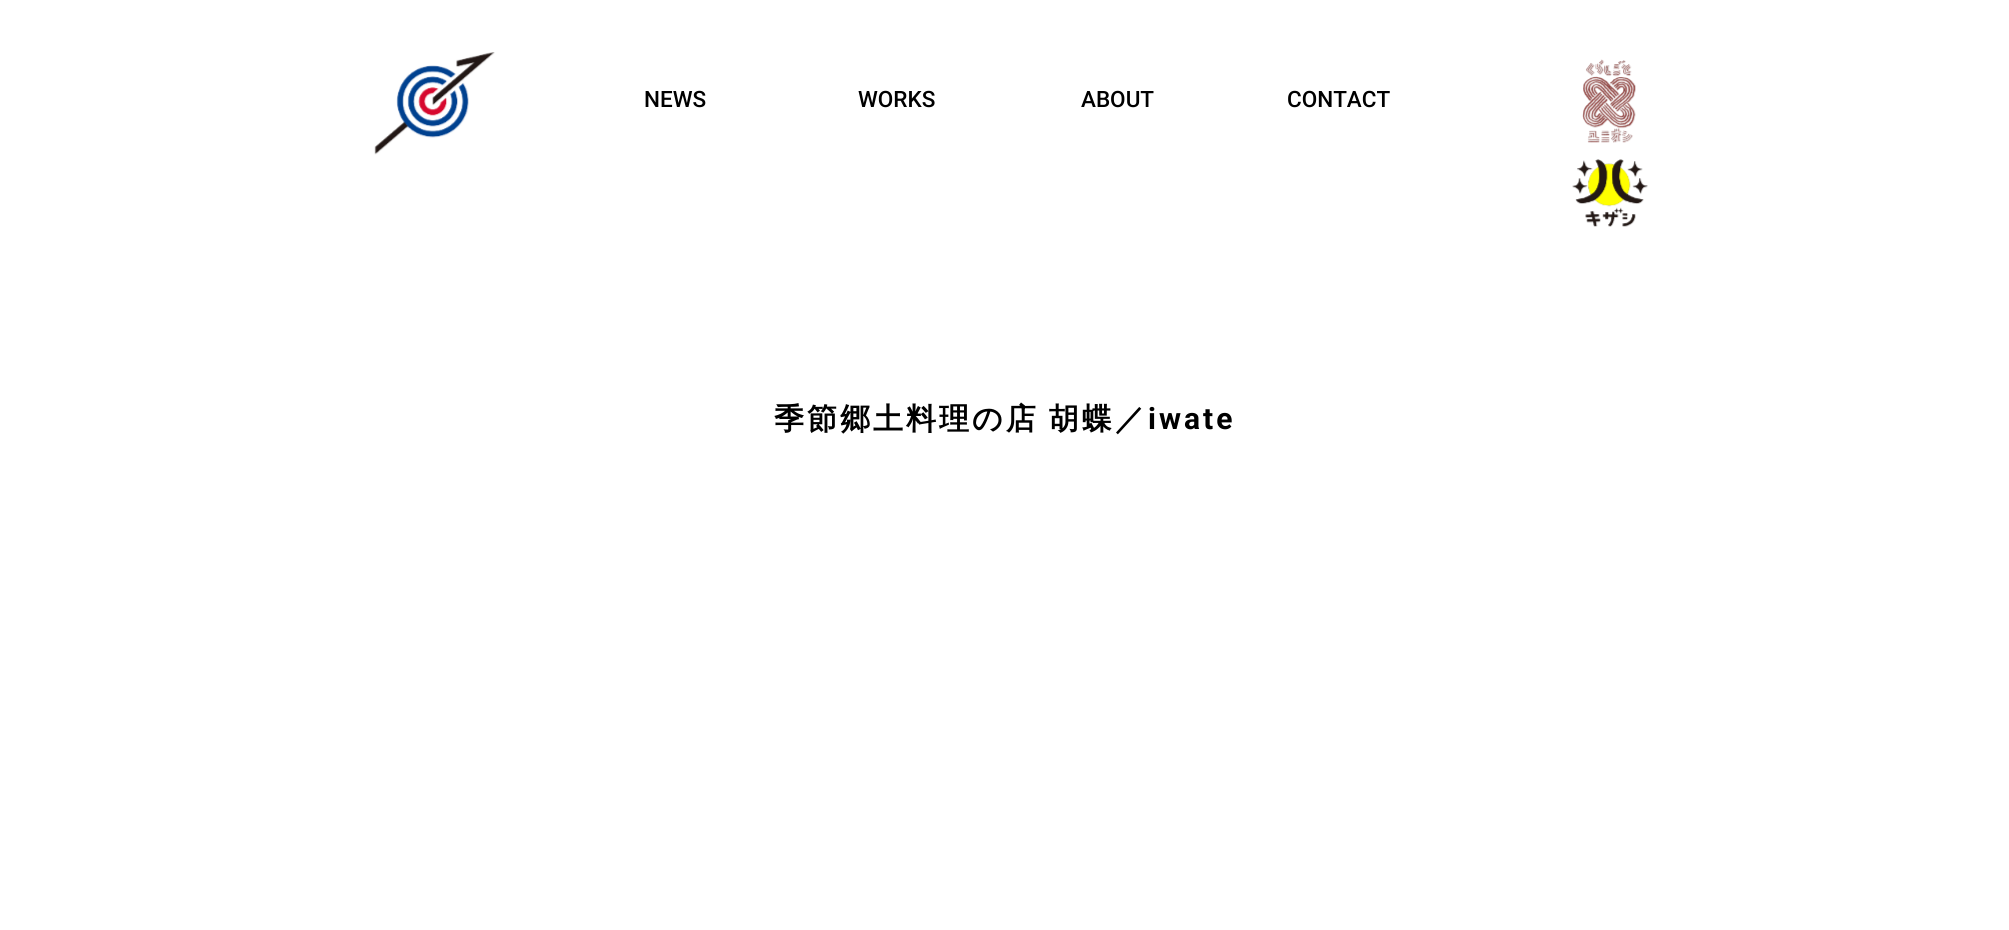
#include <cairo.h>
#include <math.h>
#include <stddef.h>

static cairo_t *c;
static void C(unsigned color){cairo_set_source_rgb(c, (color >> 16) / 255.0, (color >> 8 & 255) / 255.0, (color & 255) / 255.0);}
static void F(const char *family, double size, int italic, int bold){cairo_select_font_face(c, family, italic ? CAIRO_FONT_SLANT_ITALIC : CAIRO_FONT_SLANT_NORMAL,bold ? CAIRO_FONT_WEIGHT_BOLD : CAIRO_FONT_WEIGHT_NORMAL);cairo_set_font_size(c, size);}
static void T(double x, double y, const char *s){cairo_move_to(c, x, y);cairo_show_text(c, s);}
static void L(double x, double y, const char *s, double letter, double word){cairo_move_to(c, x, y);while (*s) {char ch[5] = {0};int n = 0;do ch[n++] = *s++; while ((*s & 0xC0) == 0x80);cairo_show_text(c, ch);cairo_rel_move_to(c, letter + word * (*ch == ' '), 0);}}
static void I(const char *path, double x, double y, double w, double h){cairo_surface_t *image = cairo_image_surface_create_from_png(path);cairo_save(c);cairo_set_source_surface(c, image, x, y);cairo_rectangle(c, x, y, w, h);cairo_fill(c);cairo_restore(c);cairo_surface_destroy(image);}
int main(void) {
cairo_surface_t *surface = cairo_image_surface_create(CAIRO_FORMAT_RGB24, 2009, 930);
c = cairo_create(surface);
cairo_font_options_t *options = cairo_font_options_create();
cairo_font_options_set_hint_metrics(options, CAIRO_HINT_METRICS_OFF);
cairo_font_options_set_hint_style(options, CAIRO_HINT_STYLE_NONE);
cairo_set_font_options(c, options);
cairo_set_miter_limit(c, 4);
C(0xffffff);
cairo_paint(c);
I("1.png",374,52,121,103);
F("Roboto Medium",22.5,0,0);
C(0x000000);
T(644,107,"NEWS");
T(858,107,"WORKS");
T(1081,107,"ABOUT");
T(1287,107,"CONTACT");
I("2.png",1582,59,54,84);
I("3.png",1572,159,76,68);
F("WenQuanYi Zen Hei",30,0,1);
L(774,429,"季節郷土料理の店 胡蝶／",3,-2);
F("Roboto",30,0,1);
L(1148,429,"iwate",3,0);
cairo_surface_write_to_png(surface, "o.png");
cairo_font_options_destroy(options);
cairo_destroy(c);
cairo_surface_destroy(surface);
return 0;
}
